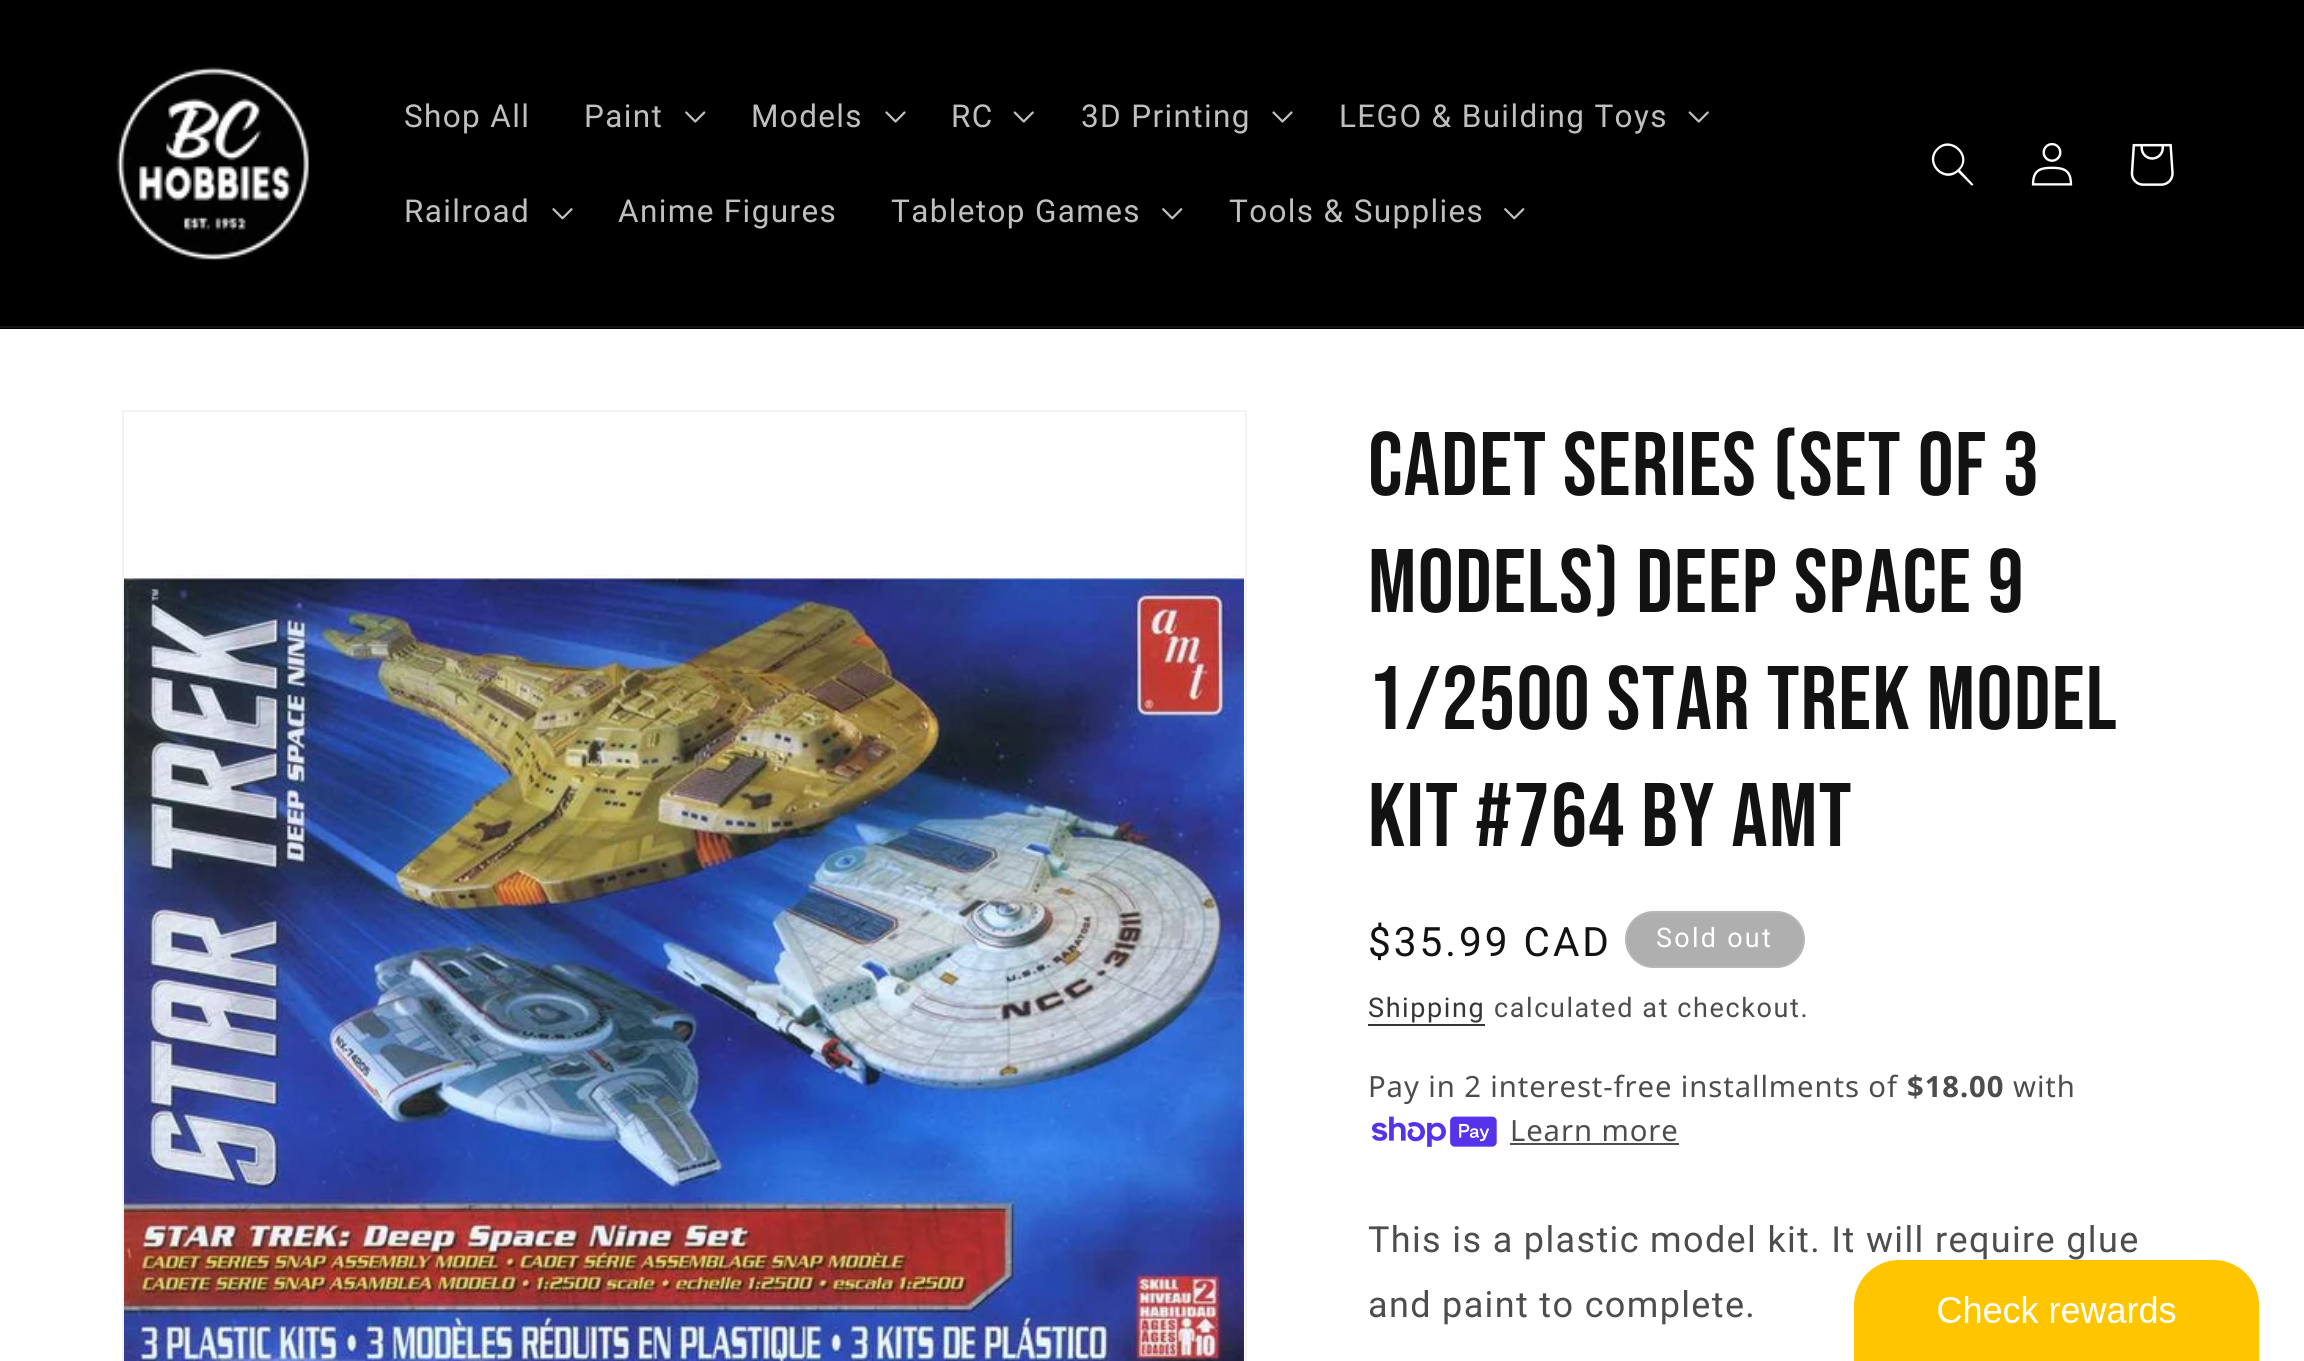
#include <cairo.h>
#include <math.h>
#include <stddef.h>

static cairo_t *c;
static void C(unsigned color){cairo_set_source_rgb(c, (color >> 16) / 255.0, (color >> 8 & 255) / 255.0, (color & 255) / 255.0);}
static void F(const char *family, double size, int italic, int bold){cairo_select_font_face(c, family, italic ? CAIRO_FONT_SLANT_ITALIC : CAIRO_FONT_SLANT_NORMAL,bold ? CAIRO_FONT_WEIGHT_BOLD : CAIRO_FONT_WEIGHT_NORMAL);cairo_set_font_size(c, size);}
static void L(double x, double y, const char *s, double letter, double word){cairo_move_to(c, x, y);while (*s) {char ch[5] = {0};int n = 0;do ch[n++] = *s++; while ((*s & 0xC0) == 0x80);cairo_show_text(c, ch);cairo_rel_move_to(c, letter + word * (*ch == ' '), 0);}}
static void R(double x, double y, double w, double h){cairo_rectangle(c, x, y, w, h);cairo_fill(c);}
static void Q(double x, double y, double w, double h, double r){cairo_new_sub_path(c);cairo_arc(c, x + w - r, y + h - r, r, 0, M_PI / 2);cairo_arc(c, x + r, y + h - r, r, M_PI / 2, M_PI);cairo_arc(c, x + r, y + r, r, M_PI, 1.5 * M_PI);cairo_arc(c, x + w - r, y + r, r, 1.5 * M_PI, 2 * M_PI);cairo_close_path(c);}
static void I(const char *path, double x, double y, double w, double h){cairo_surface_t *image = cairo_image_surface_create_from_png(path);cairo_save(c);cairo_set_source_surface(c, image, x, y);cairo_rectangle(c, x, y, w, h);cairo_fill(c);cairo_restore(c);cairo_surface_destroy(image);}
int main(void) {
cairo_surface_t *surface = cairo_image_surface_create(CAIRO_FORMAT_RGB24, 2304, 1361);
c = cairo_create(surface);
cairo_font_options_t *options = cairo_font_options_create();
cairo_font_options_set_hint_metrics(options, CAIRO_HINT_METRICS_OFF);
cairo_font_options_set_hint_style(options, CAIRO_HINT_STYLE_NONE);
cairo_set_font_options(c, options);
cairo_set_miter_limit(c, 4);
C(0xffffff);
cairo_paint(c);
C(0x000000);
R(0,0,2304,329);
C(0x141414);
R(0,326,2304,2);
I("1.png",116,66,194,195);
F("Roboto",31.5,0,0);
C(0xbfbfbf);
L(404,127,"Shop All",1.35,0);
L(584,127,"Paint",1.35,0);
I("2.png",685,111,21,12);
L(751,127,"Models",1.35,0);
I("3.png",885,111,21,12);
L(951,127,"RC",1.35,0);
I("4.png",1013,111,21,12);
L(1081,127,"3D Printing",1.35,0);
I("3.png",1272,111,21,12);
L(1339,127,"LEGO & Building Toys",1.35,0);
I("4.png",1688,111,21,12);
L(404,222,"Railroad",1.35,0);
I("5.png",552,208,21,12);
L(618,222,"Anime Figures",1.35,0);
L(891,222,"Tabletop Games",1.35,0);
I("6.png",1162,208,21,12);
L(1229,222,"Tools & Supplies",1.35,0);
I("6.png",1504,208,21,12);
C(0xffffff);
cairo_set_fill_rule(c,CAIRO_FILL_RULE_EVEN_ODD);
cairo_new_path(c);
cairo_move_to(c,1958,169);
cairo_curve_to(c,1945,182,1926,163,1938,150);
cairo_curve_to(c,1951,137,1971,157,1958,169);
cairo_move_to(c,1958,172);
cairo_curve_to(c,1943,185,1922,162,1937,148);
cairo_curve_to(c,1951,134,1974,155,1960,170);
cairo_line_to(c,1973,184);
cairo_curve_to(c,1974,185,1972,186,1971,185);
cairo_close_path(c);
cairo_fill(c);
I("7.png",2031,142,42,44);
I("8.png",2130,143,44,43);
cairo_rectangle(c,123,411,1123,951);
C(0xf3f3f3);
cairo_stroke(c);
I("9.png",124,575,1120,786);
F("Bebas Neue",90,0,0);
C(0x121212);
L(1368,495,"Cadet Series (Set of 3",1.35,0);
L(1368,612,"Models) Deep Space 9",1.35,0);
L(1368,729,"1/2500 Star Trek Model",1.35,0);
L(1368,846,"Kit #764 by AMT",1.35,0);
F("Roboto",40.5,0,0);
L(1368,956,"$35.99 CAD",3,0);
C(0xafafaf);
Q(1625,911,180,57,28.5);
cairo_fill(c);
Q(1626,912,178,55,27.5);
cairo_set_source_rgba(c,1,1,1,0.1);
cairo_stroke(c);
F("Roboto",27,0,0);
C(0xffffff);
L(1656,947,"Sold out",2.25,0);
C(0x363636);
L(1368,1017,"Shipping",1.6,0);
R(1368,1024,117,2);
C(0x4d4d4d);
L(1494,1017,"calculated at checkout.",1.6,0);
F("Noto Sans",29.25,0,0);
L(1368,1097,"Pay in 2 interest-free installments of",.9,0);
F("Noto Sans",29.25,0,1);
L(1907,1097,"$18.00",.9,0);
F("Noto Sans",29.25,0,0);
L(2013,1097,"with",.9,0);
I("10.png",1372,1116,125,31);
L(1510,1141,"Learn more",.9,0);
R(1510,1143,169,2);
F("Roboto",36,0,0);
L(1368,1252,"This is a plastic model kit. It will require glue",1.35,0);
L(1368,1317,"and paint to complete.",1.35,0);
I("11.png",1854,1260,405,101);
cairo_surface_write_to_png(surface, "o.png");
cairo_font_options_destroy(options);
cairo_destroy(c);
cairo_surface_destroy(surface);
return 0;
}
